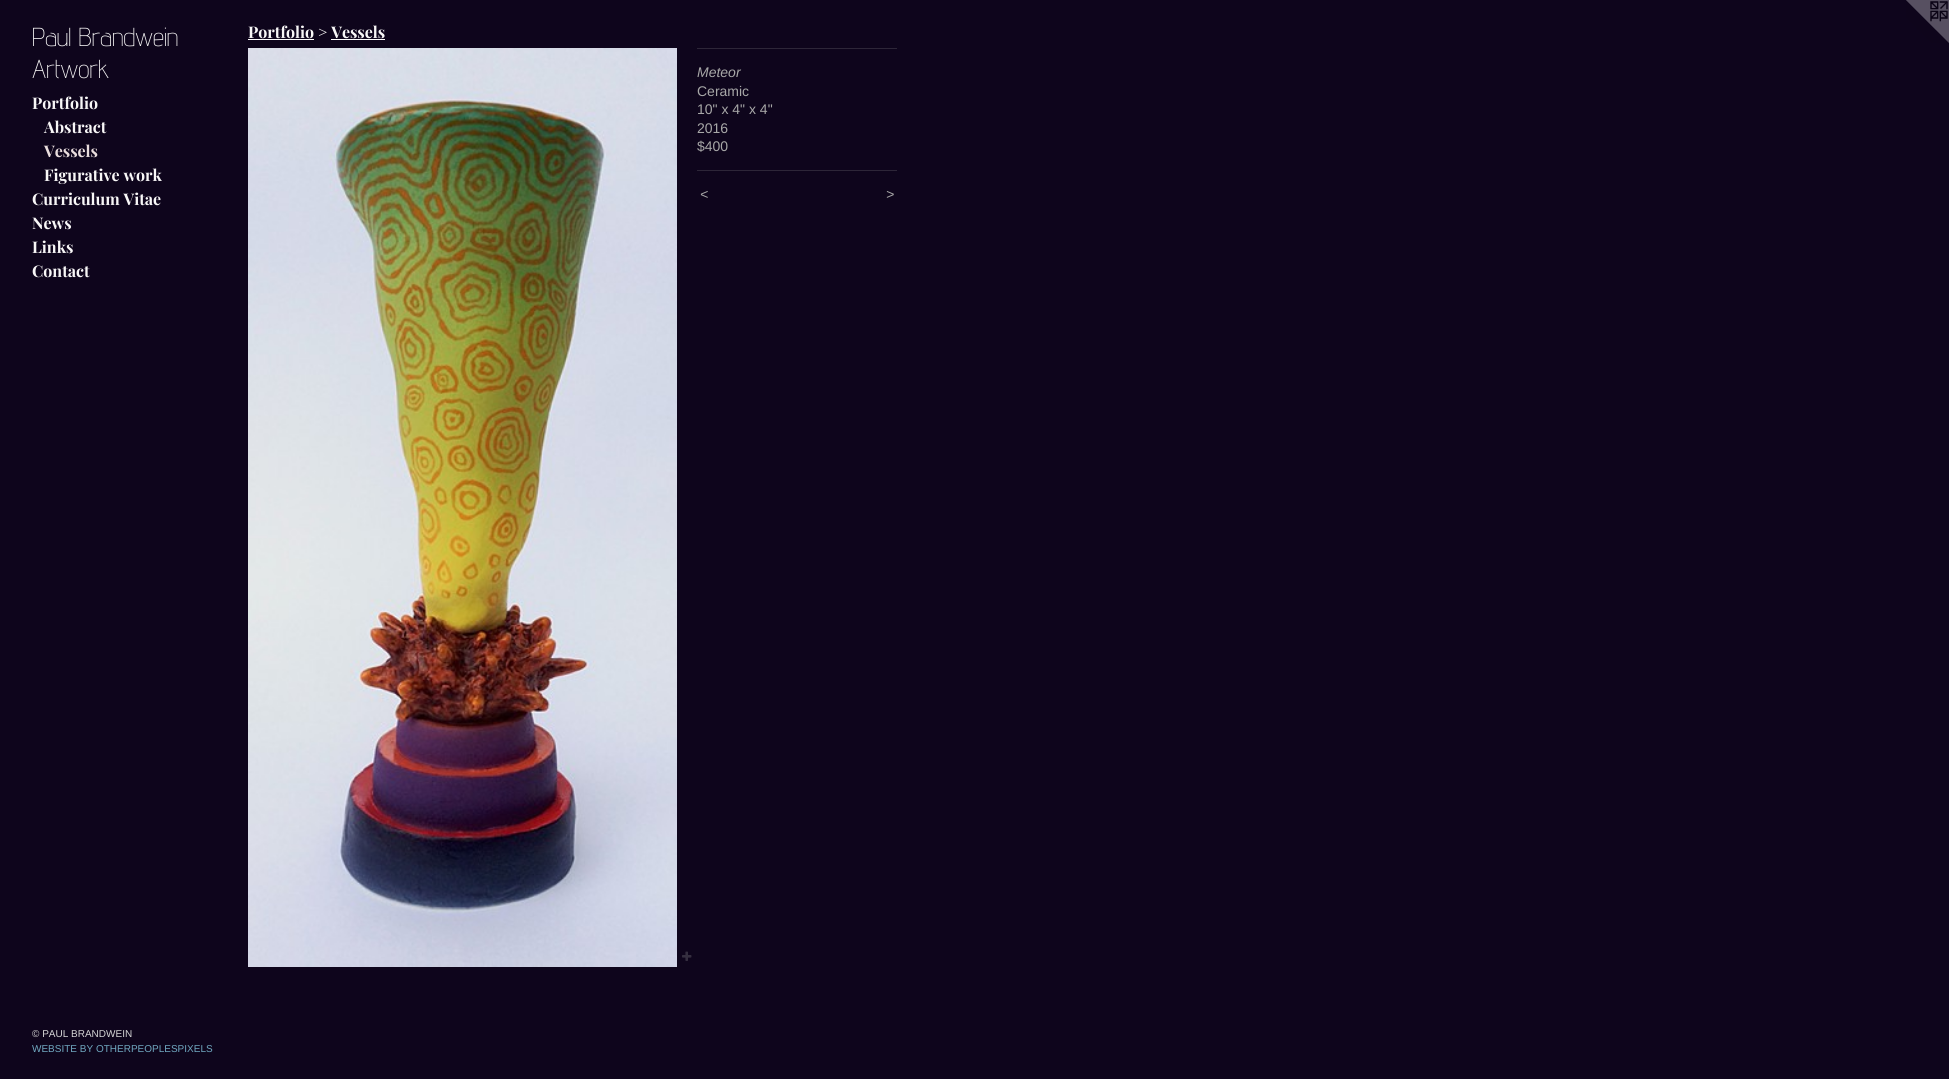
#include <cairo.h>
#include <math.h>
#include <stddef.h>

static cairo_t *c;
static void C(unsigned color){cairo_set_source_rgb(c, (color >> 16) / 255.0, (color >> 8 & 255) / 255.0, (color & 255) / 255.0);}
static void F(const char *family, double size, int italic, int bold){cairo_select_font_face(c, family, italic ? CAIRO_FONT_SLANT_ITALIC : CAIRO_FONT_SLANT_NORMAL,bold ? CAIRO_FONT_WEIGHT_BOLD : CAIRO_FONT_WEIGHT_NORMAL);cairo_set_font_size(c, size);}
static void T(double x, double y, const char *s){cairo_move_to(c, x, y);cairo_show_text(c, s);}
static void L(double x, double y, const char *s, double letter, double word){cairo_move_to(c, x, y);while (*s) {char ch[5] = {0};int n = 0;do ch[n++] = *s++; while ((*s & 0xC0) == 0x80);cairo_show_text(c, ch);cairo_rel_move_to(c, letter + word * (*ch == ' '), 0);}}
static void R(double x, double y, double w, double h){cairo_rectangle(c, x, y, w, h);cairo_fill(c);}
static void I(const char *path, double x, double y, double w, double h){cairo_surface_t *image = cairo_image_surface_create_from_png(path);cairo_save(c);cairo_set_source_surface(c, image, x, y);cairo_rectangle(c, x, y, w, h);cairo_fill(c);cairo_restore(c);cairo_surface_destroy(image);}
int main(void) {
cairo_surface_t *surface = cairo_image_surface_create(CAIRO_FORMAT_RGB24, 1949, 1079);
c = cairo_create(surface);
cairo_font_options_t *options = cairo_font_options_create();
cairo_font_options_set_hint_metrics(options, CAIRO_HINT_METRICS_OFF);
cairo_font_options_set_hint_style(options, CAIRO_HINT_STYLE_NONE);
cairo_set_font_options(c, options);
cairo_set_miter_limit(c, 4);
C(0x0e051c);
cairo_paint(c);
F("Advent Pro ExtraLight",26,0,0);
C(0xf8f7f7);
T(32,46,"Paul Brandwein");
T(32,78,"Artwork");
F("Playfair Display",16,0,1);
T(32,109,"Portfolio");
T(44,133,"Abstract");
C(0xe9dddd);
T(44,157,"Vessels");
C(0xf8f7f7);
T(44,181,"Figurative work");
T(32,205,"Curriculum Vitae");
T(32,229,"News");
T(32,253,"Links");
T(32,277,"Contact");
F("Liberation Sans",10,0,0);
C(0xd6d6d6);
T(32,1037,"© PAUL BRANDWEIN");
C(0x70a8c0);
T(32,1052,"WEBSITE BY OTHERPEOPLESPIXELS");
F("Playfair Display",16,0,1);
C(0xf8f7f7);
T(248,38,"Portfolio > Vessels");
C(0xfdfcfc);
R(248,39,66,1);
R(331,39,54,1);
I("1.png",248,48,429,919);
I("2.png",682,951,10,10);
C(0x2d2638);
R(697,48,200,1);
F("Liberation Sans",14,1,0);
C(0xa8a8a8);
T(697,77,"Meteor");
F("Liberation Sans",14,0,0);
T(697,96,"Ceramic");
T(697,114,"10\" x 4\" x 4\"");
T(697,133,"2016");
T(697,151,"$400");
C(0x2d2638);
R(697,170,200,1);
F("Liberation Sans",14,1,0);
C(0xa8a8a8);
L(700,199,"<",1,0);
L(886,199,">",1,0);
I("3.png",1906,0,43,43);
cairo_surface_write_to_png(surface, "o.png");
cairo_font_options_destroy(options);
cairo_destroy(c);
cairo_surface_destroy(surface);
return 0;
}
